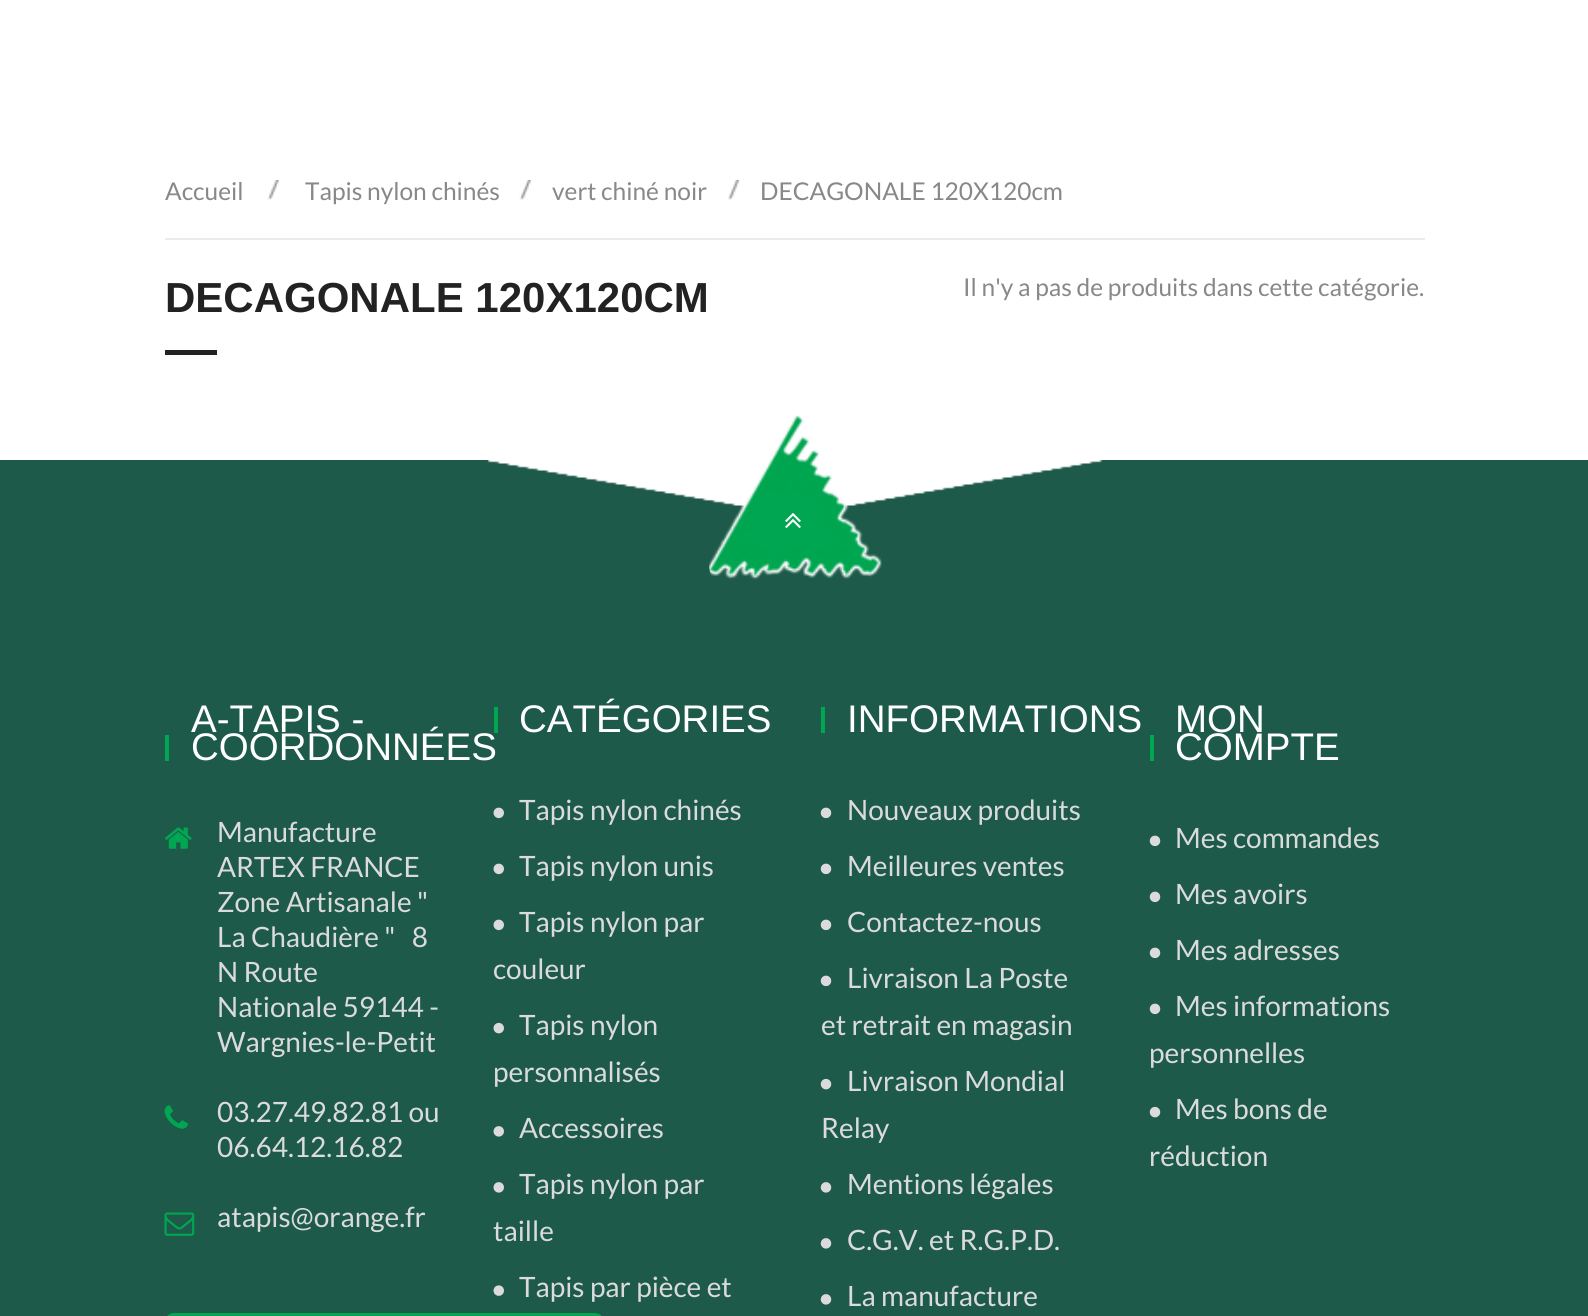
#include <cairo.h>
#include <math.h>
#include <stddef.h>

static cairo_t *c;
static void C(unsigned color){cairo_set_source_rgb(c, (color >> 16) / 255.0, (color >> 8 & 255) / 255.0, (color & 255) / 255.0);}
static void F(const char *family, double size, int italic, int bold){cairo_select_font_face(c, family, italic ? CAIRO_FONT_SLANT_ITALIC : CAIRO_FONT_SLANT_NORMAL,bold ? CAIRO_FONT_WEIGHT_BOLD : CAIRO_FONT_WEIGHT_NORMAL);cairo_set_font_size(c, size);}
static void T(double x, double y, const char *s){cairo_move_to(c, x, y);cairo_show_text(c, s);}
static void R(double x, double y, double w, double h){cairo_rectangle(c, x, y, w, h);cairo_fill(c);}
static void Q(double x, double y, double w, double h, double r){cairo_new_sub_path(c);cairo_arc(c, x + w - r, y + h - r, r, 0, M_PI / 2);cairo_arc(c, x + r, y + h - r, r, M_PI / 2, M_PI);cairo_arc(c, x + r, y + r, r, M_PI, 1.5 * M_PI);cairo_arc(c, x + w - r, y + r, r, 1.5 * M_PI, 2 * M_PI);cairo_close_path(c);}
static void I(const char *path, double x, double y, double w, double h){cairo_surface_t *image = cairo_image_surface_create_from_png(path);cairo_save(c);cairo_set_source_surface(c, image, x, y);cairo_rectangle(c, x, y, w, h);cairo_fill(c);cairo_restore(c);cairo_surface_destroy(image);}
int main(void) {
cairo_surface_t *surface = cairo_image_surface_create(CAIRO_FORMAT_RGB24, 1588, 1316);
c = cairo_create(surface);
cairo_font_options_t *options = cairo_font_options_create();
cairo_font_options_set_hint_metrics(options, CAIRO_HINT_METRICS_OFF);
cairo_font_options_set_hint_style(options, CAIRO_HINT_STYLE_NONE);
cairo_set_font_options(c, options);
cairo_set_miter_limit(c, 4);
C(0xffffff);
cairo_paint(c);
C(0xebebeb);
R(165,238,1260,2);
F("Lato",24.5,0,0);
C(0x888888);
T(165,200,"Accueil");
I("1.png",267,180,13,20);
T(305,200,"Tapis nylon chinés");
I("1.png",519,180,13,20);
T(552,200,"vert chiné noir");
I("2.png",728,180,12,20);
T(760,200,"DECAGONALE 120X120cm");
F("Liberation Sans",42,0,1);
C(0x222222);
T(165,312,"DECAGONALE 120X120CM");
F("Lato",24.5,0,0);
C(0x888888);
T(963,296,"Il n'y a pas de produits dans cette catégorie.");
C(0x222222);
R(165,350,52,5);
C(0x1d5a49);
R(0,460,1588,856);
I("5.png",487,460,616,48);
I("3.png",709,415,173,165);
I("4.png",785,513,16,15);
F("Liberation Sans",38.5,0,0);
C(0xffffff);
T(191,732,"A-TAPIS -");
C(0x00a651);
R(165,735,4,26);
C(0xffffff);
T(191,760,"COORDONNÉES");
I("6.png",165,827,27,22);
F("Lato",28,0,0);
C(0xdbdbdb);
T(217,842,"Manufacture");
T(217,877,"ARTEX FRANCE");
T(217,912,"Zone Artisanale \"");
T(217,947,"La Chaudière \"   8");
T(217,982,"N Route");
T(217,1017,"Nationale 59144 -");
T(217,1052,"Wargnies-le-Petit");
I("7.png",164,1105,24,24);
T(217,1122,"03.27.49.82.81 ou");
T(217,1157,"06.64.12.16.82");
I("8.png",164,1212,31,24);
T(217,1227,"atapis@orange.fr");
C(0x02a552);
Q(165,1313,439,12,9);
cairo_fill(c);
C(0x00a651);
R(494,707,4,26);
F("Liberation Sans",38.5,0,0);
C(0xffffff);
T(519,732,"CATÉGORIES");
I("9.png",493,807,11,12);
F("Lato",28,0,0);
C(0xdbdbdb);
T(519,820,"Tapis nylon chinés");
I("9.png",493,863,11,12);
T(519,876,"Tapis nylon unis");
I("9.png",493,919,11,12);
T(519,932,"Tapis nylon par");
T(493,979,"couleur");
I("10.png",493,1022,11,12);
T(519,1035,"Tapis nylon");
T(493,1082,"personnalisés");
I("11.png",493,1126,11,11);
T(519,1138,"Accessoires");
I("11.png",493,1182,11,11);
T(519,1194,"Tapis nylon par");
T(493,1241,"taille");
I("12.png",493,1285,11,11);
T(519,1297,"Tapis par pièce et");
C(0x00a651);
R(821,707,4,26);
F("Liberation Sans",38.5,0,0);
C(0xffffff);
T(847,732,"INFORMATIONS");
I("13.png",820,807,12,12);
F("Lato",28,0,0);
C(0xdbdbdb);
T(847,820,"Nouveaux produits");
I("13.png",820,863,12,12);
T(847,876,"Meilleures ventes");
I("13.png",820,919,12,12);
T(847,932,"Contactez-nous");
I("13.png",820,975,12,12);
T(847,988,"Livraison La Poste");
T(821,1035,"et retrait en magasin");
I("14.png",820,1078,12,12);
T(847,1091,"Livraison Mondial");
T(821,1138,"Relay");
I("15.png",820,1182,12,11);
T(847,1194,"Mentions légales");
I("15.png",820,1238,12,11);
T(847,1250,"C.G.V. et R.G.P.D.");
I("15.png",820,1294,12,11);
T(847,1306,"La manufacture");
F("Liberation Sans",38.5,0,0);
C(0xffffff);
T(1175,732,"MON");
C(0x00a651);
R(1150,735,4,26);
C(0xffffff);
T(1175,760,"COMPTE");
I("13.png",1149,835,12,12);
F("Lato",28,0,0);
C(0xdbdbdb);
T(1175,848,"Mes commandes");
I("13.png",1149,891,12,12);
T(1175,904,"Mes avoirs");
I("13.png",1149,947,12,12);
T(1175,960,"Mes adresses");
I("13.png",1149,1003,12,12);
T(1175,1016,"Mes informations");
T(1149,1063,"personnelles");
I("14.png",1149,1106,12,12);
T(1175,1119,"Mes bons de");
T(1149,1166,"réduction");
cairo_surface_write_to_png(surface, "o.png");
cairo_font_options_destroy(options);
cairo_destroy(c);
cairo_surface_destroy(surface);
return 0;
}
